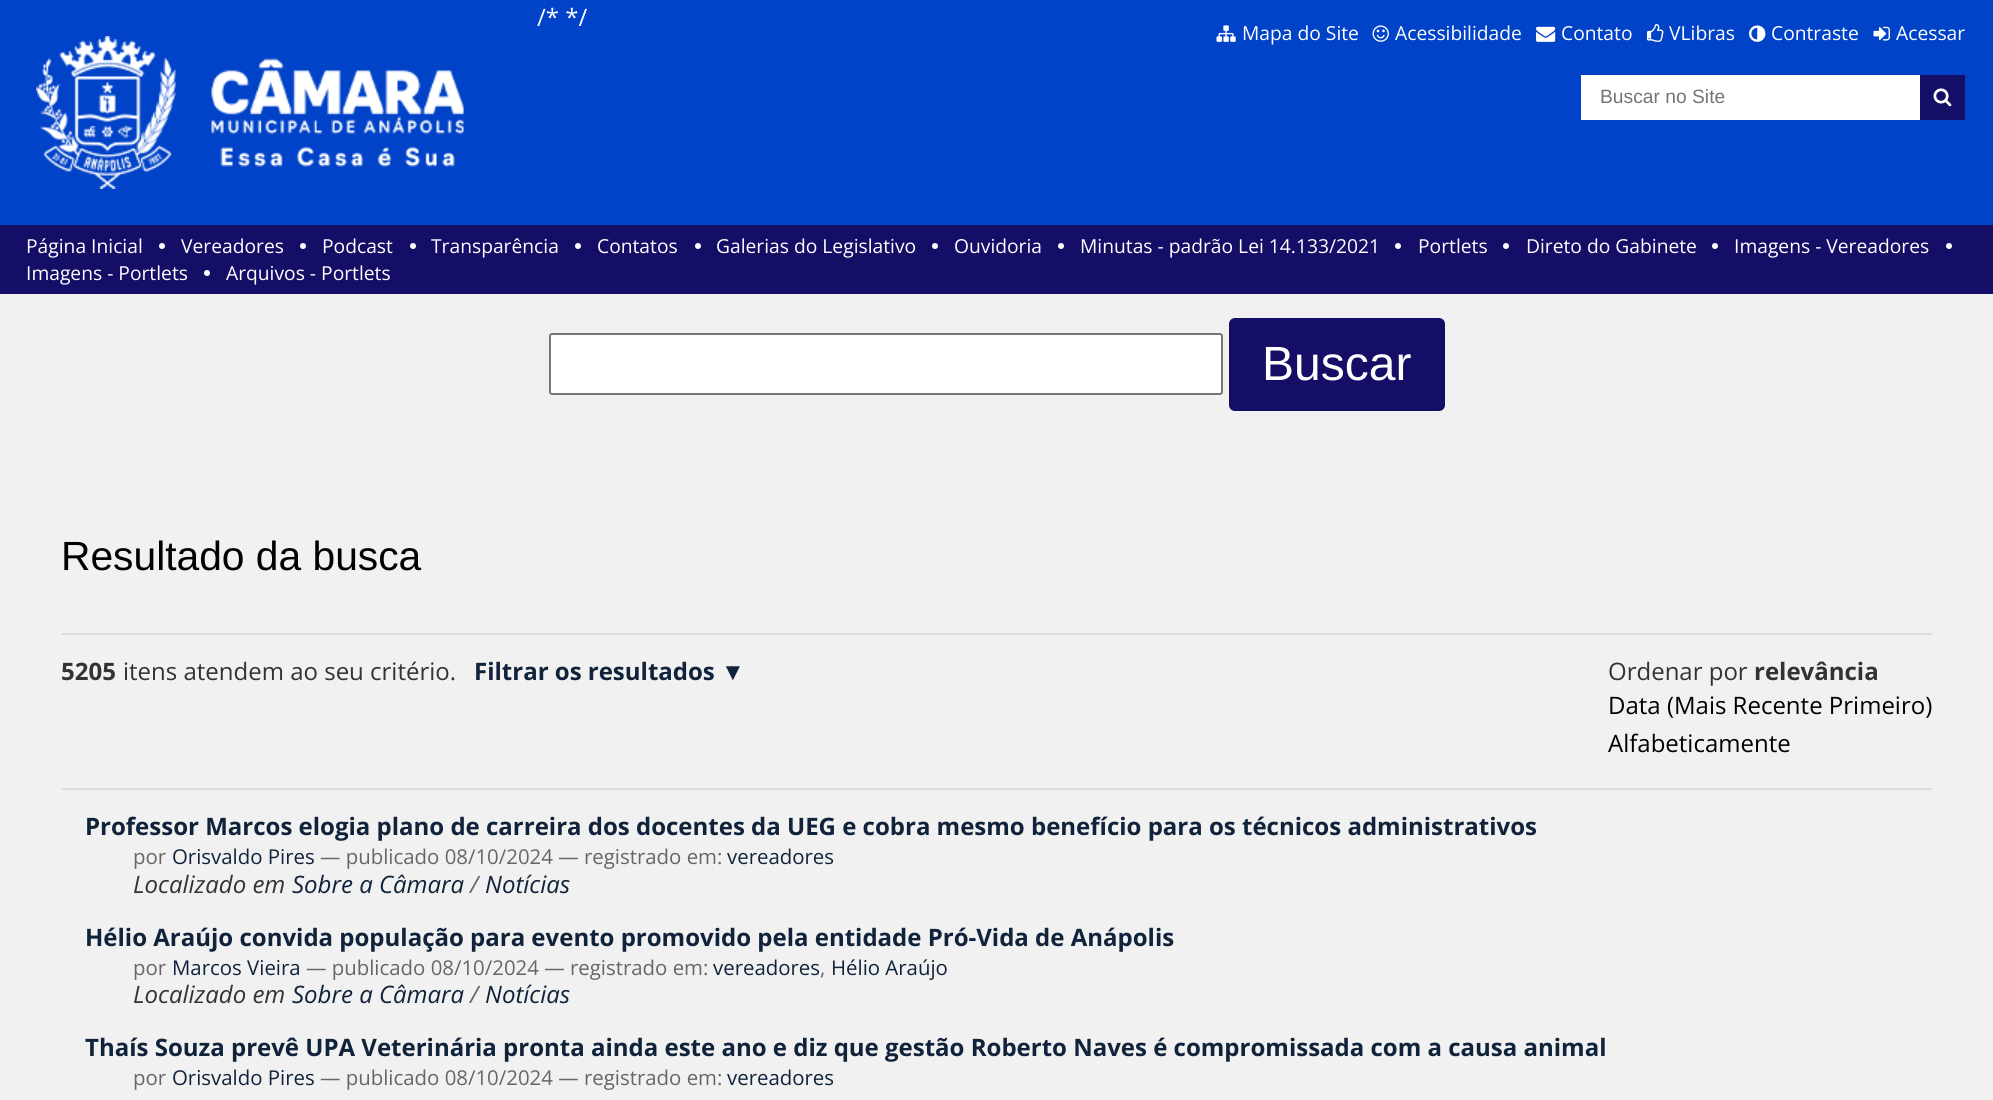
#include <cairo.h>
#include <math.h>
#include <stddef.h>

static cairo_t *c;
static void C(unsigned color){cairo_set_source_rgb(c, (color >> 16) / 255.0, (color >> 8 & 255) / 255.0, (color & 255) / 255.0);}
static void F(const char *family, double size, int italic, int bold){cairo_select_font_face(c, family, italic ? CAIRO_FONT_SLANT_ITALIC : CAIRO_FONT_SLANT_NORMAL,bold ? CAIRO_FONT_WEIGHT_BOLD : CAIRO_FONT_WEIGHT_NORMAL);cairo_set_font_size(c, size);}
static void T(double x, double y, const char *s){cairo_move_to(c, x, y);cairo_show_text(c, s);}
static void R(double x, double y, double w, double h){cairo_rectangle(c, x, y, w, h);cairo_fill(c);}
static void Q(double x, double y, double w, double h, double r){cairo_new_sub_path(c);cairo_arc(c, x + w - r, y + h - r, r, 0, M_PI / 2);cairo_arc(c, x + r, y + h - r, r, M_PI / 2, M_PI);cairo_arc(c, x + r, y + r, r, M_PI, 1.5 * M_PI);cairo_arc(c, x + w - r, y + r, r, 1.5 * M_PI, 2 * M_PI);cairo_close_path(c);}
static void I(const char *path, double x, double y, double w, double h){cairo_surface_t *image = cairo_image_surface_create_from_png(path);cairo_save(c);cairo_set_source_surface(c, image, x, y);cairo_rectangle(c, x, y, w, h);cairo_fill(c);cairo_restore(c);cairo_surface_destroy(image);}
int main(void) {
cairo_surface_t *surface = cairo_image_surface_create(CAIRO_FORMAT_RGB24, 1993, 1100);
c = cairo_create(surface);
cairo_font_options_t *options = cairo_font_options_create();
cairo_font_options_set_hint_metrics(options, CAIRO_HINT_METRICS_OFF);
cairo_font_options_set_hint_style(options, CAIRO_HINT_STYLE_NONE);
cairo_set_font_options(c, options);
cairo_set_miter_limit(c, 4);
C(0xf1f1f1);
cairo_paint(c);
C(0x0042c8);
R(0,0,1993,225);
F("Open Sans",24,0,0);
C(0xffffff);
T(537,26,"/* */");
I("1.png",36,36,428,153);
I("2.png",1216,25,20,17);
F("Open Sans",19.25,0,0);
T(1242,40,"Mapa do Site");
I("3.png",1372,25,17,17);
T(1395,40,"Acessibilidade");
I("4.png",1536,26,20,16);
T(1561,40,"Contato");
I("5.png",1647,24,17,18);
T(1669,40,"VLibras");
I("6.png",1749,25,17,17);
T(1771,40,"Contraste");
I("7.png",1873,26,17,15);
T(1896,40,"Acessar");
R(1581,75,339,45);
F("Liberation Sans",19.25,0,0);
C(0x757575);
T(1600,103,"Buscar no Site");
C(0x140e66);
R(1920,75,45,45);
I("8.png",1933,88,19,19);
R(0,225,1993,69);
F("Open Sans",19.25,0,0);
C(0xffffff);
T(26,253,"Página Inicial");
cairo_new_path(c);
cairo_arc(c,162,246,3,0,2 * M_PI);
cairo_fill(c);
T(181,253,"Vereadores");
cairo_new_path(c);
cairo_arc(c,303,246,3,0,2 * M_PI);
cairo_fill(c);
T(322,253,"Podcast");
cairo_new_path(c);
cairo_arc(c,413,246,3,0,2 * M_PI);
cairo_fill(c);
T(431,253,"Transparência");
cairo_new_path(c);
cairo_arc(c,578,246,3,0,2 * M_PI);
cairo_fill(c);
T(597,253,"Contatos");
cairo_new_path(c);
cairo_arc(c,698,246,3,0,2 * M_PI);
cairo_fill(c);
T(716,253,"Galerias do Legislativo");
cairo_new_path(c);
cairo_arc(c,935,246,3,0,2 * M_PI);
cairo_fill(c);
T(954,253,"Ouvidoria");
cairo_new_path(c);
cairo_arc(c,1061,246,3,0,2 * M_PI);
cairo_fill(c);
T(1080,253,"Minutas - padrão Lei 14.133/2021");
cairo_new_path(c);
cairo_arc(c,1398,246,3,0,2 * M_PI);
cairo_fill(c);
T(1418,253,"Portlets");
cairo_new_path(c);
cairo_arc(c,1506,246,3,0,2 * M_PI);
cairo_fill(c);
T(1526,253,"Direto do Gabinete");
cairo_new_path(c);
cairo_arc(c,1715,246,3,0,2 * M_PI);
cairo_fill(c);
T(1734,253,"Imagens - Vereadores");
cairo_new_path(c);
cairo_arc(c,1949,246,3,0,2 * M_PI);
cairo_fill(c);
T(26,280,"Imagens - Portlets");
cairo_new_path(c);
cairo_arc(c,207,273,3,0,2 * M_PI);
cairo_fill(c);
T(226,280,"Arquivos - Portlets");
Q(550,334,672,60,2);
cairo_fill_preserve(c);
C(0x767676);
cairo_stroke(c);
C(0x140e66);
Q(1229,318,216,93,6);
cairo_fill(c);
F("Liberation Sans",48,0,0);
C(0xffffff);
T(1262,380,"Buscar");
F("Liberation Sans",40.75,0,0);
C(0x000000);
T(61,570,"Resultado da busca");
C(0xdddddd);
R(62,633,1870,2);
R(62,788,1870,2);
F("Open Sans",24,0,1);
C(0x333333);
T(61,680,"5205");
F("Open Sans",24,0,0);
T(123,680,"itens atendem ao seu critério.");
F("Open Sans",24,0,1);
C(0x10233b);
T(474,680,"Filtrar os resultados");
F("Liberation Sans",24,0,1);
T(721,680,"▼");
F("Open Sans",24,0,1);
C(0x333333);
T(1754,680,"relevância");
F("Open Sans",24,0,0);
C(0x000000);
T(1608,714,"Data (Mais Recente Primeiro)");
T(1608,752,"Alfabeticamente");
C(0x333333);
T(1608,680,"Ordenar por");
F("Open Sans",24,0,1);
C(0x10233b);
T(85,835,"Professor Marcos elogia plano de carreira dos docentes da UEG e cobra mesmo benefício para os técnicos administrativos");
F("Open Sans",20.4,0,0);
C(0x666666);
T(133,864,"por");
C(0x10233b);
T(172,864,"Orisvaldo Pires");
C(0x666666);
T(320,864,"— publicado 08/10/2024 — registrado em:");
C(0x10233b);
T(727,864,"vereadores");
F("Open Sans",24,1,0);
C(0x333333);
T(133,893,"Localizado em");
C(0x10233b);
T(292,893,"Sobre a Câmara");
C(0x666666);
T(470,893,"/");
C(0x10233b);
T(485,893,"Notícias");
F("Open Sans",24,0,1);
T(85,946,"Hélio Araújo convida população para evento promovido pela entidade Pró-Vida de Anápolis");
F("Open Sans",20.4,0,0);
C(0x666666);
T(133,975,"por");
C(0x10233b);
T(172,975,"Marcos Vieira");
C(0x666666);
T(306,975,"— publicado 08/10/2024 — registrado em:");
C(0x10233b);
T(713,975,"vereadores");
C(0x666666);
T(820,975,",");
C(0x10233b);
T(831,975,"Hélio Araújo");
F("Open Sans",24,1,0);
C(0x333333);
T(133,1003,"Localizado em");
C(0x10233b);
T(292,1003,"Sobre a Câmara");
C(0x666666);
T(470,1003,"/");
C(0x10233b);
T(485,1003,"Notícias");
F("Open Sans",24,0,1);
T(85,1056,"Thaís Souza prevê UPA Veterinária pronta ainda este ano e diz que gestão Roberto Naves é compromissada com a causa animal");
F("Open Sans",20.4,0,0);
C(0x666666);
T(133,1085,"por");
C(0x10233b);
T(172,1085,"Orisvaldo Pires");
C(0x666666);
T(320,1085,"— publicado 08/10/2024 — registrado em:");
C(0x10233b);
T(727,1085,"vereadores");
cairo_surface_write_to_png(surface, "o.png");
cairo_font_options_destroy(options);
cairo_destroy(c);
cairo_surface_destroy(surface);
return 0;
}
